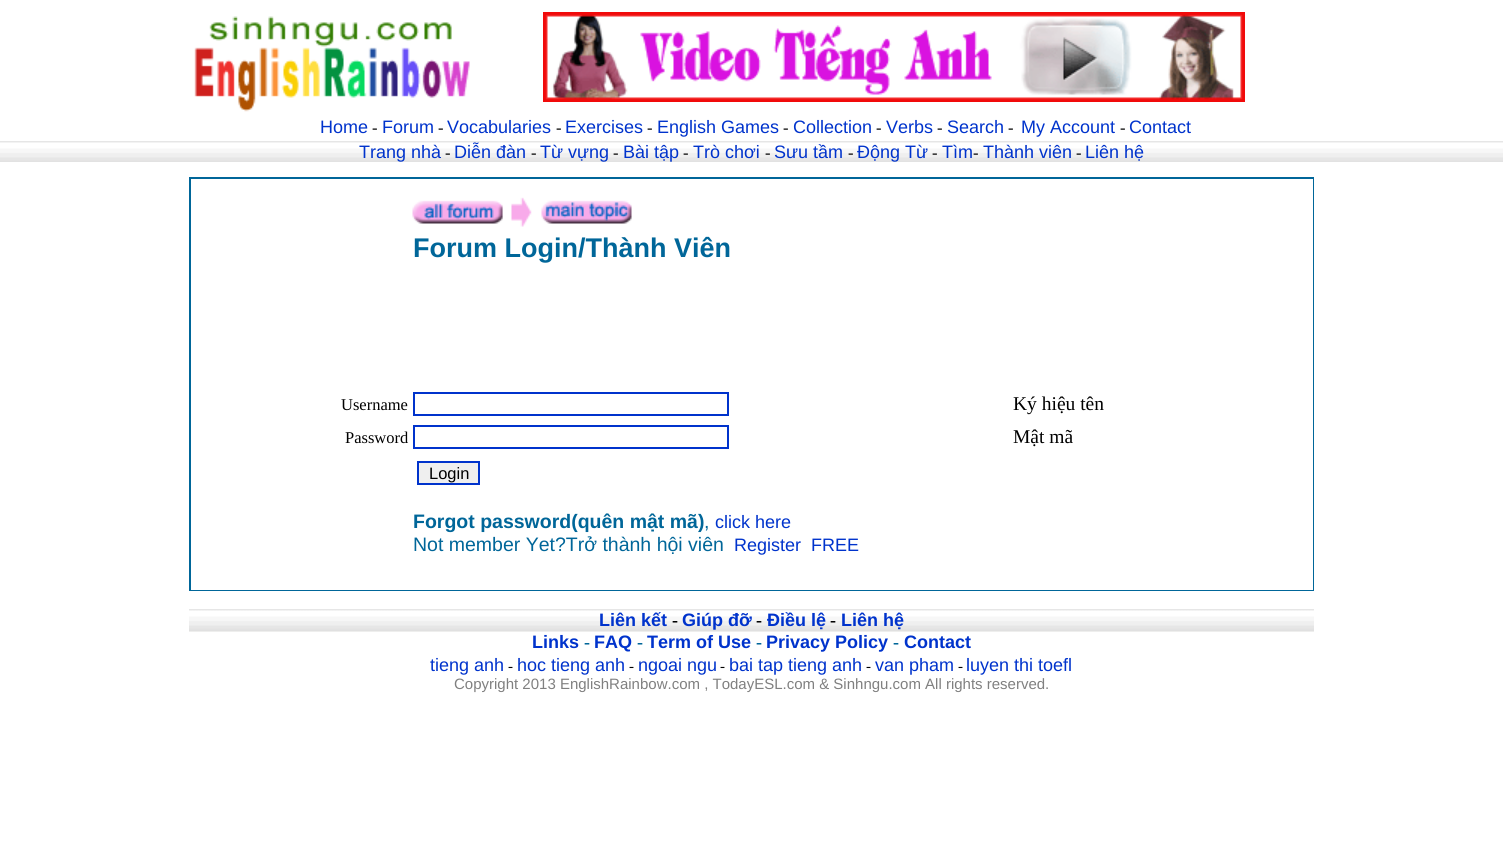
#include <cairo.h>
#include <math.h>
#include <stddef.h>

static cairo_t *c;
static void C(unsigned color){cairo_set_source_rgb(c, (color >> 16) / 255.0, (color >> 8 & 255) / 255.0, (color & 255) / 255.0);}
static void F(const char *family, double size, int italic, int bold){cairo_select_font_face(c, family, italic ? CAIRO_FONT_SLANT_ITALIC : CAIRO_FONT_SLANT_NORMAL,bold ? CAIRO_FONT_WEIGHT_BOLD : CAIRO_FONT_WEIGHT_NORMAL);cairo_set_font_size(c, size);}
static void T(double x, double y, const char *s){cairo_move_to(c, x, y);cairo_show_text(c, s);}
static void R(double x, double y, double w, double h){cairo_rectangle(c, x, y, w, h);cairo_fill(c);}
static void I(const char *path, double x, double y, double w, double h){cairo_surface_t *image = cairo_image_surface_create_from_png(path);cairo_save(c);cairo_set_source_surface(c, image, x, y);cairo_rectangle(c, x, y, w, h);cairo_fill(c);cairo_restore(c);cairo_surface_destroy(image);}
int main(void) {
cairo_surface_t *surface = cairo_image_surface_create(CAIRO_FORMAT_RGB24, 1503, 846);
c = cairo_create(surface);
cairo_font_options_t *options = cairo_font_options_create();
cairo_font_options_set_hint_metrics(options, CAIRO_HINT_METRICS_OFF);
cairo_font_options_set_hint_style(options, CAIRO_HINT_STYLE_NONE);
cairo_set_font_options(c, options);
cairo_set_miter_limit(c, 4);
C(0xffffff);
cairo_paint(c);
I("1.png",194,16,276,96);
I("2.png",543,12,702,90);
F("Liberation Sans",18,0,0);
C(0x0033cc);
T(320,133,"Home");
F("Liberation Serif",16.5,0,0);
C(0x000000);
T(372,133,"-");
F("Liberation Sans",18,0,0);
C(0x0033cc);
T(382,133,"Forum");
F("Liberation Serif",16.5,0,0);
C(0x000000);
T(438,133,"-");
F("Liberation Sans",18,0,0);
C(0x0033cc);
T(447,133,"Vocabularies");
F("Liberation Serif",16.5,0,0);
C(0x000000);
T(556,133,"-");
F("Liberation Sans",18,0,0);
C(0x0033cc);
T(565,133,"Exercises");
F("Liberation Serif",16.5,0,0);
C(0x000000);
T(647,133,"-");
F("Liberation Sans",18,0,0);
C(0x0033cc);
T(657,133,"English Games");
F("Liberation Serif",16.5,0,0);
C(0x000000);
T(783,133,"-");
F("Liberation Sans",18,0,0);
C(0x0033cc);
T(793,133,"Collection");
F("Liberation Serif",16.5,0,0);
C(0x000000);
T(876,133,"-");
F("Liberation Sans",18,0,0);
C(0x0033cc);
T(886,133,"Verbs");
F("Liberation Serif",16.5,0,0);
C(0x000000);
T(937,133,"-");
F("Liberation Sans",18,0,0);
C(0x0033cc);
T(947,133,"Search");
F("Liberation Serif",16.5,0,0);
C(0x000000);
T(1008,133,"-");
F("Liberation Sans",18,0,0);
C(0x0033cc);
T(1021,133,"My Account");
F("Liberation Serif",16.5,0,0);
C(0x000000);
T(1120,133,"-");
F("Liberation Sans",18,0,0);
C(0x0033cc);
T(1129,133,"Contact");
I("3.png",0,141,1503,21);
T(359,158,"Trang nhà");
F("Liberation Serif",16.5,0,0);
C(0x000000);
T(445,158,"-");
F("Liberation Sans",18,0,0);
C(0x0033cc);
T(454,158,"Diễn đàn");
F("Liberation Serif",16.5,0,0);
C(0x000000);
T(531,158,"-");
F("Liberation Sans",18,0,0);
C(0x0033cc);
T(540,158,"Từ vựng");
F("Liberation Serif",16.5,0,0);
C(0x000000);
T(613,158,"-");
F("Liberation Sans",18,0,0);
C(0x0033cc);
T(623,158,"Bài tập");
F("Liberation Serif",16.5,0,0);
C(0x000000);
T(683,158,"-");
F("Liberation Sans",18,0,0);
C(0x0033cc);
T(693,158,"Trò chơi");
F("Liberation Serif",16.5,0,0);
C(0x000000);
T(765,158,"-");
F("Liberation Sans",18,0,0);
C(0x0033cc);
T(774,158,"Sưu tầm");
F("Liberation Serif",16.5,0,0);
C(0x000000);
T(848,158,"-");
F("Liberation Sans",18,0,0);
C(0x0033cc);
T(857,158,"Động Từ");
F("Liberation Serif",16.5,0,0);
C(0x000000);
T(932,158,"-");
F("Liberation Sans",18,0,0);
C(0x0033cc);
T(942,158,"Tìm");
F("Liberation Serif",16.5,0,0);
C(0x000000);
T(973,158,"-");
F("Liberation Sans",18,0,0);
C(0x0033cc);
T(983,158,"Thành viên");
F("Liberation Serif",16.5,0,0);
C(0x000000);
T(1076,158,"-");
F("Liberation Sans",18,0,0);
C(0x0033cc);
T(1085,158,"Liên hệ");
C(0x006699);
R(189,177,1125,414);
C(0xffffff);
R(191,179,1122,411);
I("4.png",412,200,91,24);
I("5.png",511,197,21,30);
I("6.png",541,200,91,24);
F("Liberation Sans",27,0,1);
C(0x006699);
T(413,257,"Forum Login/Thành Viên");
F("Liberation Serif",16.5,0,0);
C(0x000000);
T(341,410,"Username");
cairo_rectangle(c,414,393,314,22);
C(0x0033cc);
cairo_stroke(c);
F("Liberation Serif",19.5,0,0);
C(0x000000);
T(1013,410,"Ký hiệu tên");
F("Liberation Serif",16.5,0,0);
T(345,443,"Password");
cairo_rectangle(c,414,426,314,22);
C(0x0033cc);
cairo_stroke(c);
F("Liberation Serif",19.5,0,0);
C(0x000000);
T(1013,443,"Mật mã");
C(0xefefef);
cairo_rectangle(c,418,462,61,22);
cairo_fill_preserve(c);
C(0x0033cc);
cairo_stroke(c);
F("Liberation Sans",16.5,0,0);
C(0x000000);
T(429,479,"Login");
F("Liberation Sans",19.5,0,1);
C(0x006699);
T(413,528,"Forgot password(quên mật mã)");
F("Liberation Sans",19.5,0,0);
T(704,528,",");
F("Liberation Sans",18,0,0);
C(0x0033cc);
T(715,528,"click here");
F("Liberation Sans",19.5,0,0);
C(0x006699);
T(413,551,"Not member Yet?Trở thành hội viên");
F("Liberation Sans",18,0,0);
C(0x0033cc);
T(734,551,"Register");
T(811,551,"FREE");
I("7.png",189,609,1125,23);
F("Liberation Sans",18,0,1);
T(599,626,"Liên kết");
F("Liberation Serif",18,0,1);
C(0x000000);
T(672,626,"-");
F("Liberation Sans",18,0,1);
C(0x0033cc);
T(682,626,"Giúp đỡ");
F("Liberation Serif",18,0,1);
C(0x000000);
T(756,626,"-");
F("Liberation Sans",18,0,1);
C(0x0033cc);
T(767,626,"Điều lệ");
F("Liberation Serif",18,0,1);
C(0x000000);
T(830,626,"-");
F("Liberation Sans",18,0,1);
C(0x0033cc);
T(841,626,"Liên hệ");
T(532,648,"Links");
F("Liberation Serif",18,0,1);
C(0x006699);
T(584,648,"-");
F("Liberation Sans",18,0,1);
C(0x0033cc);
T(594,648,"FAQ");
F("Liberation Serif",18,0,1);
C(0x006699);
T(637,648,"-");
F("Liberation Sans",18,0,1);
C(0x0033cc);
T(647,648,"Term of Use");
F("Liberation Serif",18,0,1);
C(0x006699);
T(756,648,"-");
F("Liberation Sans",18,0,1);
C(0x0033cc);
T(766,648,"Privacy Policy");
F("Liberation Serif",18,0,1);
C(0x006699);
T(893,648,"-");
F("Liberation Sans",18,0,1);
C(0x0033cc);
T(904,648,"Contact");
F("Liberation Sans",18,0,0);
T(430,671,"tieng anh");
F("Liberation Serif",15,0,0);
C(0x000000);
T(508,671,"-");
F("Liberation Sans",18,0,0);
C(0x0033cc);
T(517,671,"hoc tieng anh");
F("Liberation Serif",15,0,0);
C(0x000000);
T(629,671,"-");
F("Liberation Sans",18,0,0);
C(0x0033cc);
T(638,671,"ngoai ngu");
F("Liberation Serif",15,0,0);
C(0x000000);
T(720,671,"-");
F("Liberation Sans",18,0,0);
C(0x0033cc);
T(729,671,"bai tap tieng anh");
F("Liberation Serif",15,0,0);
C(0x000000);
T(866,671,"-");
F("Liberation Sans",18,0,0);
C(0x0033cc);
T(875,671,"van pham");
F("Liberation Serif",15,0,0);
C(0x000000);
T(958,671,"-");
F("Liberation Sans",18,0,0);
C(0x0033cc);
T(966,671,"luyen thi toefl");
F("Liberation Sans",15,0,0);
C(0x808080);
T(454,689,"Copyright 2013 EnglishRainbow.com , TodayESL.com & Sinhngu.com All rights reserved.");
cairo_surface_write_to_png(surface, "o.png");
cairo_font_options_destroy(options);
cairo_destroy(c);
cairo_surface_destroy(surface);
return 0;
}
